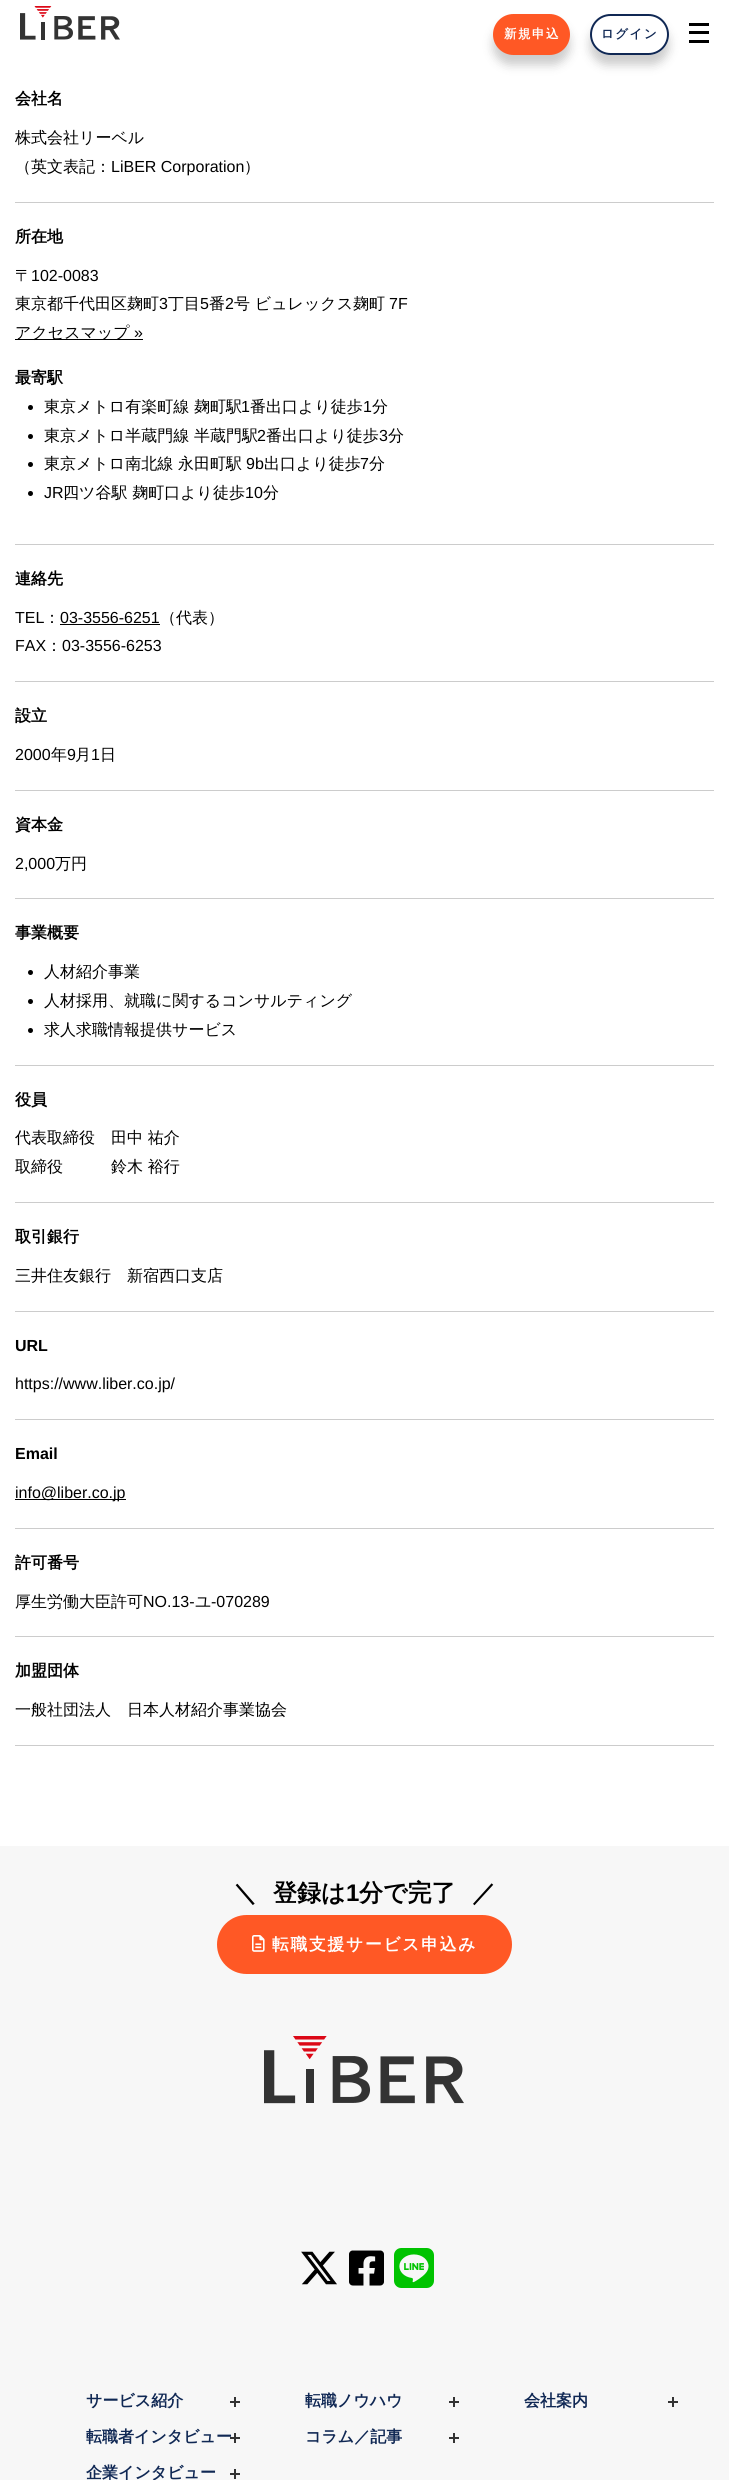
#include <cairo.h>
#include <math.h>
#include <stddef.h>

static cairo_t *c;
static void C(unsigned color){cairo_set_source_rgb(c, (color >> 16) / 255.0, (color >> 8 & 255) / 255.0, (color & 255) / 255.0);}
static void F(const char *family, double size, int italic, int bold){cairo_select_font_face(c, family, italic ? CAIRO_FONT_SLANT_ITALIC : CAIRO_FONT_SLANT_NORMAL,bold ? CAIRO_FONT_WEIGHT_BOLD : CAIRO_FONT_WEIGHT_NORMAL);cairo_set_font_size(c, size);}
static void T(double x, double y, const char *s){cairo_move_to(c, x, y);cairo_show_text(c, s);}
static void L(double x, double y, const char *s, double letter, double word){cairo_move_to(c, x, y);while (*s) {char ch[5] = {0};int n = 0;do ch[n++] = *s++; while ((*s & 0xC0) == 0x80);cairo_show_text(c, ch);cairo_rel_move_to(c, letter + word * (*ch == ' '), 0);}}
static void R(double x, double y, double w, double h){cairo_rectangle(c, x, y, w, h);cairo_fill(c);}
static void Q(double x, double y, double w, double h, double r){cairo_new_sub_path(c);cairo_arc(c, x + w - r, y + h - r, r, 0, M_PI / 2);cairo_arc(c, x + r, y + h - r, r, M_PI / 2, M_PI);cairo_arc(c, x + r, y + r, r, M_PI, 1.5 * M_PI);cairo_arc(c, x + w - r, y + r, r, 1.5 * M_PI, 2 * M_PI);cairo_close_path(c);}
static void S(double x, double y, double w, double h, double r, double blur, double alpha){cairo_push_group_with_content(c, CAIRO_CONTENT_ALPHA);cairo_set_operator(c, CAIRO_OPERATOR_SOURCE);for (int i = 15; i >= -15 && fmin(w, h) + blur * i / 3 > 0; i -= 2) {double e = blur * i / 6;cairo_set_source_rgba(c, 0, 0, 0, alpha * erfc((i - 1) / 8.5) / 2);Q(x - e, y - e, w + 2 * e, h + 2 * e, fmax(0, fmin(r + e + blur * .6, fmin(w, h) / 2 + e)));cairo_fill(c);}cairo_pattern_t *soft = cairo_pop_group(c);cairo_mask(c, soft);cairo_pattern_destroy(soft);}
static void I(const char *path, double x, double y, double w, double h){cairo_surface_t *image = cairo_image_surface_create_from_png(path);cairo_save(c);cairo_set_source_surface(c, image, x, y);cairo_rectangle(c, x, y, w, h);cairo_fill(c);cairo_restore(c);cairo_surface_destroy(image);}
int main(void) {
cairo_surface_t *surface = cairo_image_surface_create(CAIRO_FORMAT_RGB24, 729, 2480);
c = cairo_create(surface);
cairo_font_options_t *options = cairo_font_options_create();
cairo_font_options_set_hint_metrics(options, CAIRO_HINT_METRICS_OFF);
cairo_font_options_set_hint_style(options, CAIRO_HINT_STYLE_NONE);
cairo_set_font_options(c, options);
cairo_set_miter_limit(c, 4);
C(0xffffff);
cairo_paint(c);
I("1.png",20,6,100,34);
C(0x000000);
S(493,24,77,41,20.5,5,.2);
C(0xff5825);
Q(493,14,77,41,20.5);
cairo_fill(c);
F("WenQuanYi Zen Hei",12.5,0,1);
C(0xffffff);
L(504,38,"新規申込",1.5,0);
cairo_save(c);
cairo_set_fill_rule(c,CAIRO_FILL_RULE_EVEN_ODD);
cairo_new_path(c);
cairo_move_to(c,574,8);
cairo_line_to(c,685,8);
cairo_line_to(c,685,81);
cairo_line_to(c,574,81);
cairo_close_path(c);
cairo_move_to(c,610.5,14);
cairo_line_to(c,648.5,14);
cairo_curve_to(c,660,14,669,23,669,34.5);
cairo_curve_to(c,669,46,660,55,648.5,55);
cairo_line_to(c,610.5,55);
cairo_curve_to(c,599,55,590,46,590,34.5);
cairo_curve_to(c,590,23,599,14,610.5,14);
cairo_close_path(c);
cairo_clip(c);
C(0x000000);
S(590,24,79,41,20.5,5,.2);
cairo_restore(c);
Q(591,15,77,39,19.5);
C(0x102854);
cairo_stroke(c);
L(601,38,"ログイン",1.5,0);
C(0x000000);
R(689,23,20,3);
R(689,31,20,3);
R(689,40,20,3);
F("WenQuanYi Zen Hei",16,0,1);
T(15,104,"会社名");
C(0xcccccc);
R(15,202,699,1);
F("WenQuanYi Zen Hei Medium",16,0,0);
C(0x000000);
T(15,143,"株式会社リーベル");
T(15,172,"（英文表記：");
F("Liberation Sans",16,0,0);
T(111,172,"LiBER Corporation");
F("WenQuanYi Zen Hei Medium",16,0,0);
T(244,172,"）");
F("WenQuanYi Zen Hei",16,0,1);
T(15,242,"所在地");
C(0xcccccc);
R(15,544,699,1);
F("WenQuanYi Zen Hei Medium",16,0,0);
C(0x000000);
T(15,281,"〒");
F("Liberation Sans",16,0,0);
T(31,281,"102-0083");
F("WenQuanYi Zen Hei Medium",16,0,0);
T(15,309,"東京都千代田区麹町");
F("Liberation Sans",16,0,0);
T(159,309,"3");
F("WenQuanYi Zen Hei Medium",16,0,0);
T(168,309,"丁目");
F("Liberation Sans",16,0,0);
T(200,309,"5");
F("WenQuanYi Zen Hei Medium",16,0,0);
T(209,309,"番");
F("Liberation Sans",16,0,0);
T(225,309,"2");
F("WenQuanYi Zen Hei Medium",16,0,0);
T(234,309,"号 ビュレックス麹町");
F("Liberation Sans",16,0,0);
T(389,309,"7F");
R(15,339,128,1);
F("WenQuanYi Zen Hei Medium",16,0,0);
T(15,338,"アクセスマップ");
F("Liberation Sans",16,0,0);
T(134,338,"»");
F("WenQuanYi Zen Hei",16,0,1);
T(15,383,"最寄駅");
cairo_new_path(c);
cairo_arc(c,30.5,407.5,2.5,0,2 * M_PI);
cairo_fill(c);
F("WenQuanYi Zen Hei Medium",16,0,0);
T(44,412,"東京メトロ有楽町線 麹町駅");
F("Liberation Sans",16,0,0);
T(241,412,"1");
F("WenQuanYi Zen Hei Medium",16,0,0);
T(250,412,"番出口より徒歩");
F("Liberation Sans",16,0,0);
T(363,412,"1");
F("WenQuanYi Zen Hei Medium",16,0,0);
T(372,412,"分");
cairo_new_path(c);
cairo_arc(c,30.5,436.5,2.5,0,2 * M_PI);
cairo_fill(c);
T(44,441,"東京メトロ半蔵門線 半蔵門駅");
F("Liberation Sans",16,0,0);
T(257,441,"2");
F("WenQuanYi Zen Hei Medium",16,0,0);
T(266,441,"番出口より徒歩");
F("Liberation Sans",16,0,0);
T(379,441,"3");
F("WenQuanYi Zen Hei Medium",16,0,0);
T(388,441,"分");
cairo_new_path(c);
cairo_arc(c,30.5,464.5,2.5,0,2 * M_PI);
cairo_fill(c);
T(44,469,"東京メトロ南北線 永田町駅");
F("Liberation Sans",16,0,0);
T(246,469,"9b");
F("WenQuanYi Zen Hei Medium",16,0,0);
T(264,469,"出口より徒歩");
F("Liberation Sans",16,0,0);
T(360,469,"7");
F("WenQuanYi Zen Hei Medium",16,0,0);
T(369,469,"分");
cairo_new_path(c);
cairo_arc(c,30.5,493.5,2.5,0,2 * M_PI);
cairo_fill(c);
F("Liberation Sans",16,0,0);
T(44,498,"JR");
F("WenQuanYi Zen Hei Medium",16,0,0);
T(63,498,"四ツ谷駅 麹町口より徒歩");
F("Liberation Sans",16,0,0);
T(245,498,"10");
F("WenQuanYi Zen Hei Medium",16,0,0);
T(263,498,"分");
F("WenQuanYi Zen Hei",16,0,1);
T(15,584,"連絡先");
C(0xcccccc);
R(15,681,699,1);
F("Liberation Sans",16,0,0);
C(0x000000);
T(15,623,"TEL");
F("WenQuanYi Zen Hei Medium",16,0,0);
T(44,623,"：");
F("Liberation Sans",16,0,0);
T(60,623,"03-3556-6251");
R(60,624,100,1);
F("WenQuanYi Zen Hei Medium",16,0,0);
T(160,623,"（代表）");
F("Liberation Sans",16,0,0);
T(15,651,"FAX");
F("WenQuanYi Zen Hei Medium",16,0,0);
T(46,651,"：");
F("Liberation Sans",16,0,0);
T(62,651,"03-3556-6253");
F("WenQuanYi Zen Hei",16,0,1);
T(15,721,"設立");
C(0xcccccc);
R(15,790,699,1);
F("Liberation Sans",16,0,0);
C(0x000000);
T(15,760,"2000");
F("WenQuanYi Zen Hei Medium",16,0,0);
T(51,760,"年");
F("Liberation Sans",16,0,0);
T(67,760,"9");
F("WenQuanYi Zen Hei Medium",16,0,0);
T(75,760,"月");
F("Liberation Sans",16,0,0);
T(91,760,"1");
F("WenQuanYi Zen Hei Medium",16,0,0);
T(100,760,"日");
F("WenQuanYi Zen Hei",16,0,1);
T(15,830,"資本金");
C(0xcccccc);
R(15,898,699,1);
F("Liberation Sans",16,0,0);
C(0x000000);
T(15,869,"2,000");
F("WenQuanYi Zen Hei Medium",16,0,0);
T(55,869,"万円");
F("WenQuanYi Zen Hei",16,0,1);
T(15,938,"事業概要");
C(0xcccccc);
R(15,1065,699,1);
C(0x000000);
cairo_new_path(c);
cairo_arc(c,30.5,972.5,2.5,0,2 * M_PI);
cairo_fill(c);
F("WenQuanYi Zen Hei Medium",16,0,0);
T(44,977,"人材紹介事業");
cairo_new_path(c);
cairo_arc(c,30.5,1001.5,2.5,0,2 * M_PI);
cairo_fill(c);
T(44,1006,"人材採用、就職に関するコンサルティング");
cairo_new_path(c);
cairo_arc(c,30.5,1030.5,2.5,0,2 * M_PI);
cairo_fill(c);
T(44,1035,"求人求職情報提供サービス");
F("WenQuanYi Zen Hei",16,0,1);
T(15,1105,"役員");
C(0xcccccc);
R(15,1202,699,1);
F("WenQuanYi Zen Hei Medium",16,0,0);
C(0x000000);
T(15,1143,"代表取締役");
T(111,1143,"田中 祐介");
T(15,1172,"取締役");
T(111,1172,"鈴木 裕行");
F("WenQuanYi Zen Hei",16,0,1);
T(15,1242,"取引銀行");
C(0xcccccc);
R(15,1311,699,1);
F("WenQuanYi Zen Hei Medium",16,0,0);
C(0x000000);
T(15,1281,"三井住友銀行　新宿西口支店");
F("Liberation Sans",16,0,1);
T(15,1351,"URL");
C(0xcccccc);
R(15,1419,699,1);
F("Liberation Sans",16,0,0);
C(0x000000);
T(15,1389,"https://www.liber.co.jp/");
F("Liberation Sans",16,0,1);
T(15,1459,"Email");
C(0xcccccc);
R(15,1528,699,1);
C(0x000000);
R(15,1499,111,1);
F("Liberation Sans",16,0,0);
T(15,1498,"info@liber.co.jp");
F("WenQuanYi Zen Hei",16,0,1);
T(15,1568,"許可番号");
C(0xcccccc);
R(15,1636,699,1);
F("WenQuanYi Zen Hei Medium",16,0,0);
C(0x000000);
T(15,1607,"厚生労働大臣許可");
F("Liberation Sans",16,0,0);
T(143,1607,"NO.13-");
F("WenQuanYi Zen Hei Medium",16,0,0);
T(195,1607,"ユ");
F("Liberation Sans",16,0,0);
T(211,1607,"-070289");
F("WenQuanYi Zen Hei",16,0,1);
T(15,1676,"加盟団体");
C(0xcccccc);
R(15,1745,699,1);
F("WenQuanYi Zen Hei Medium",16,0,0);
C(0x000000);
T(15,1715,"一般社団法人　日本人材紹介事業協会");
C(0xf7f7f7);
R(0,1846,729,634);
F("WenQuanYi Zen Hei",24,0,1);
C(0x000000);
T(233,1901,"＼");
T(273,1901,"登録は");
F("Liberation Sans",24,0,1);
T(346,1901,"1");
F("WenQuanYi Zen Hei",24,0,1);
T(359,1901,"分で完了");
T(472,1901,"／");
C(0xff5825);
Q(217,1915,295,59,29.5);
cairo_fill(c);
I("2.png",252,1935,13,17);
F("WenQuanYi Zen Hei",16.75,0,1);
C(0xffffff);
L(272,1950,"転職支援サービス申込み",1.75,0);
I("3.png",264,2036,200,68);
I("4.png",301,2251,36,34);
I("5.png",349,2250,35,36);
I("6.png",394,2248,40,40);
F("WenQuanYi Zen Hei",16,0,1);
C(0x102854);
T(86,2406,"サービス紹介");
C(0x333333);
R(230,2401,10,2);
R(234,2397,2,10);
C(0x102854);
T(86,2442,"転職者インタビュー");
C(0x333333);
R(230,2437,10,2);
R(234,2433,2,10);
C(0x102854);
T(86,2478,"企業インタビュー");
C(0x333333);
R(230,2473,10,2);
R(234,2469,2,10);
C(0x102854);
T(305,2406,"転職ノウハウ");
C(0x333333);
R(449,2401,10,2);
R(453,2397,2,10);
C(0x102854);
T(305,2442,"コラム／記事");
C(0x333333);
R(449,2437,10,2);
R(453,2433,2,10);
C(0x102854);
T(524,2406,"会社案内");
C(0x333333);
R(668,2401,10,2);
R(672,2397,2,10);
cairo_surface_write_to_png(surface, "o.png");
cairo_font_options_destroy(options);
cairo_destroy(c);
cairo_surface_destroy(surface);
return 0;
}
